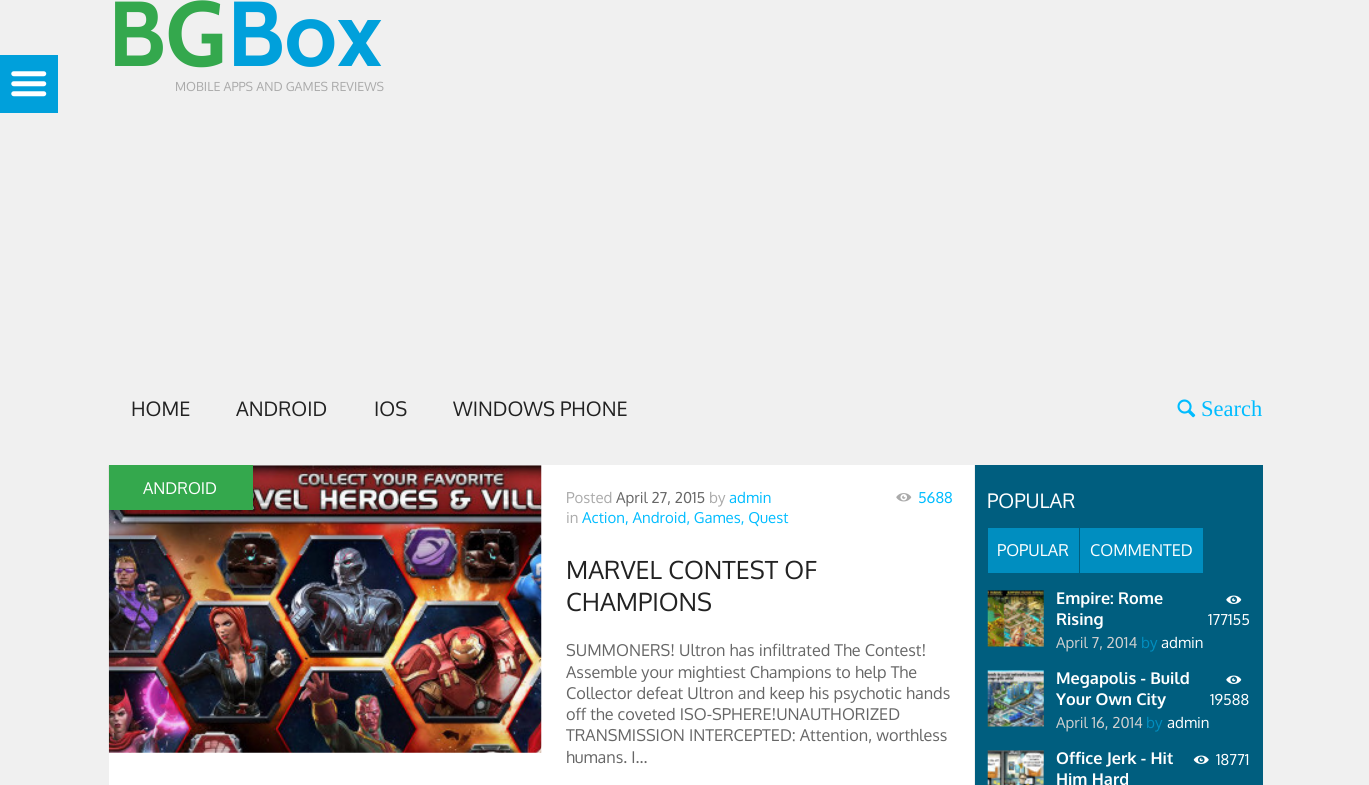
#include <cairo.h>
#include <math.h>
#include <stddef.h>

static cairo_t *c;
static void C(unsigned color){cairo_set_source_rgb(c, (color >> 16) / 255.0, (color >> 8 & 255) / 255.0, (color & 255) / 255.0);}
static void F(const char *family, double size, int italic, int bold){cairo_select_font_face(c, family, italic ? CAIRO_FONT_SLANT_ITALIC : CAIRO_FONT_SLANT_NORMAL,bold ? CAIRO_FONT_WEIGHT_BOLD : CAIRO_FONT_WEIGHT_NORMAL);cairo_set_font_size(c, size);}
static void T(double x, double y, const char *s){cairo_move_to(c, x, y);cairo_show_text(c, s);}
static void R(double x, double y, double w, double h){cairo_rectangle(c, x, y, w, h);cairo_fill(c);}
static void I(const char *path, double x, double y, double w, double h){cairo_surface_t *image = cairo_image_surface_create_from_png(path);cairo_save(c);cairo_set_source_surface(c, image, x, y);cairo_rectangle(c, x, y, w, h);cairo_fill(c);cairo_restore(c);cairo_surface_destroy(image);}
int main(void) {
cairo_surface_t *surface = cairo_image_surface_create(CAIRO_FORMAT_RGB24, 1369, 785);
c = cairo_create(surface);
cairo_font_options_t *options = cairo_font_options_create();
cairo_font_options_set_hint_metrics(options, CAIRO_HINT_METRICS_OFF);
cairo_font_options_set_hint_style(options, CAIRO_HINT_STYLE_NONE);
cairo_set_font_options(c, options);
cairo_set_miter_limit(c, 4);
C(0xf0f0f0);
cairo_paint(c);
C(0x00a0db);
R(0,55,58,58);
I("1.png",11,71,36,26);
F("Cabin",92,0,1);
C(0x34a84d);
T(108,66,"BG");
C(0x00a0db);
T(227,66,"Box");
F("Oxygen",12.5,0,0);
C(0xaaaaaa);
T(175,91,"MOBILE APPS AND GAMES REVIEWS");
F("Oxygen",20,0,0);
C(0x222222);
T(131,416,"HOME");
T(236,416,"ANDROID");
T(374,416,"IOS");
T(453,416,"WINDOWS PHONE");
I("2.png",1177,399,19,19);
F("Liberation Serif",22.5,0,0);
C(0x00bcff);
T(1201,416,"Search");
C(0xffffff);
R(109,465,865,320);
I("3.png",108,465,434,288);
C(0x34a84d);
R(109,465,144,45);
F("Oxygen",16.25,0,0);
C(0xffffff);
T(143,494,"ANDROID");
F("Oxygen",15,0,0);
C(0xaaaaaa);
T(566,503,"Posted");
C(0x666666);
T(616,503,"April 27, 2015");
C(0xaaaaaa);
T(709,503,"by");
C(0x00bcff);
T(729,503,"admin");
I("4.png",896,493,16,9);
T(918,503,"5688");
C(0xaaaaaa);
T(566,523,"in");
C(0x00bcff);
T(582,523,"Action, Android, Games, Quest");
F("Oxygen",25,0,0);
C(0x222222);
T(566,579,"MARVEL CONTEST OF");
T(566,611,"CHAMPIONS");
F("Oxygen",16.25,0,0);
C(0x666666);
T(566,656,"SUMMONERS! Ultron has infiltrated The Contest!");
T(566,678,"Assemble your mightiest Champions to help The");
T(566,699,"Collector defeat Ultron and keep his psychotic hands");
T(566,720,"off the coveted ISO-SPHERE!UNAUTHORIZED");
T(566,741,"TRANSMISSION INTERCEPTED: Attention, worthless");
T(566,763,"humans. I...");
C(0x005e7f);
R(975,465,288,320);
F("Oxygen",20,0,0);
C(0xffffff);
T(987,508,"POPULAR");
C(0x008ec0);
R(988,528,91,45);
F("Oxygen",16.25,0,0);
C(0xffffff);
T(997,556,"POPULAR");
C(0x008ec0);
R(1080,528,123,45);
C(0xffffff);
T(1090,556,"COMMENTED");
I("5.png",987,590,57,57);
F("Oxygen",16.25,0,1);
T(1056,604,"Empire: Rome");
T(1056,625,"Rising");
I("6.png",1226,595,16,9);
F("Oxygen",15,0,0);
T(1208,625,"177155");
C(0xd0d0d0);
T(1056,648,"April 7, 2014");
C(0x008ec0);
T(1141,648,"by");
C(0xffffff);
T(1161,648,"admin");
I("7.png",987,670,57,57);
F("Oxygen",16.25,0,1);
T(1056,684,"Megapolis - Build");
T(1056,705,"Your Own City");
I("6.png",1226,675,16,9);
F("Oxygen",15,0,0);
T(1210,705,"19588");
C(0xd0d0d0);
T(1056,728,"April 16, 2014");
C(0x008ec0);
T(1146,728,"by");
C(0xffffff);
T(1167,728,"admin");
I("8.png",987,750,57,35);
F("Oxygen",16.25,0,1);
T(1056,764,"Office Jerk - Hit");
T(1056,785,"Him Hard");
I("9.png",1193,755,16,9);
F("Oxygen",15,0,0);
T(1216,765,"18771");
cairo_surface_write_to_png(surface, "o.png");
cairo_font_options_destroy(options);
cairo_destroy(c);
cairo_surface_destroy(surface);
return 0;
}
